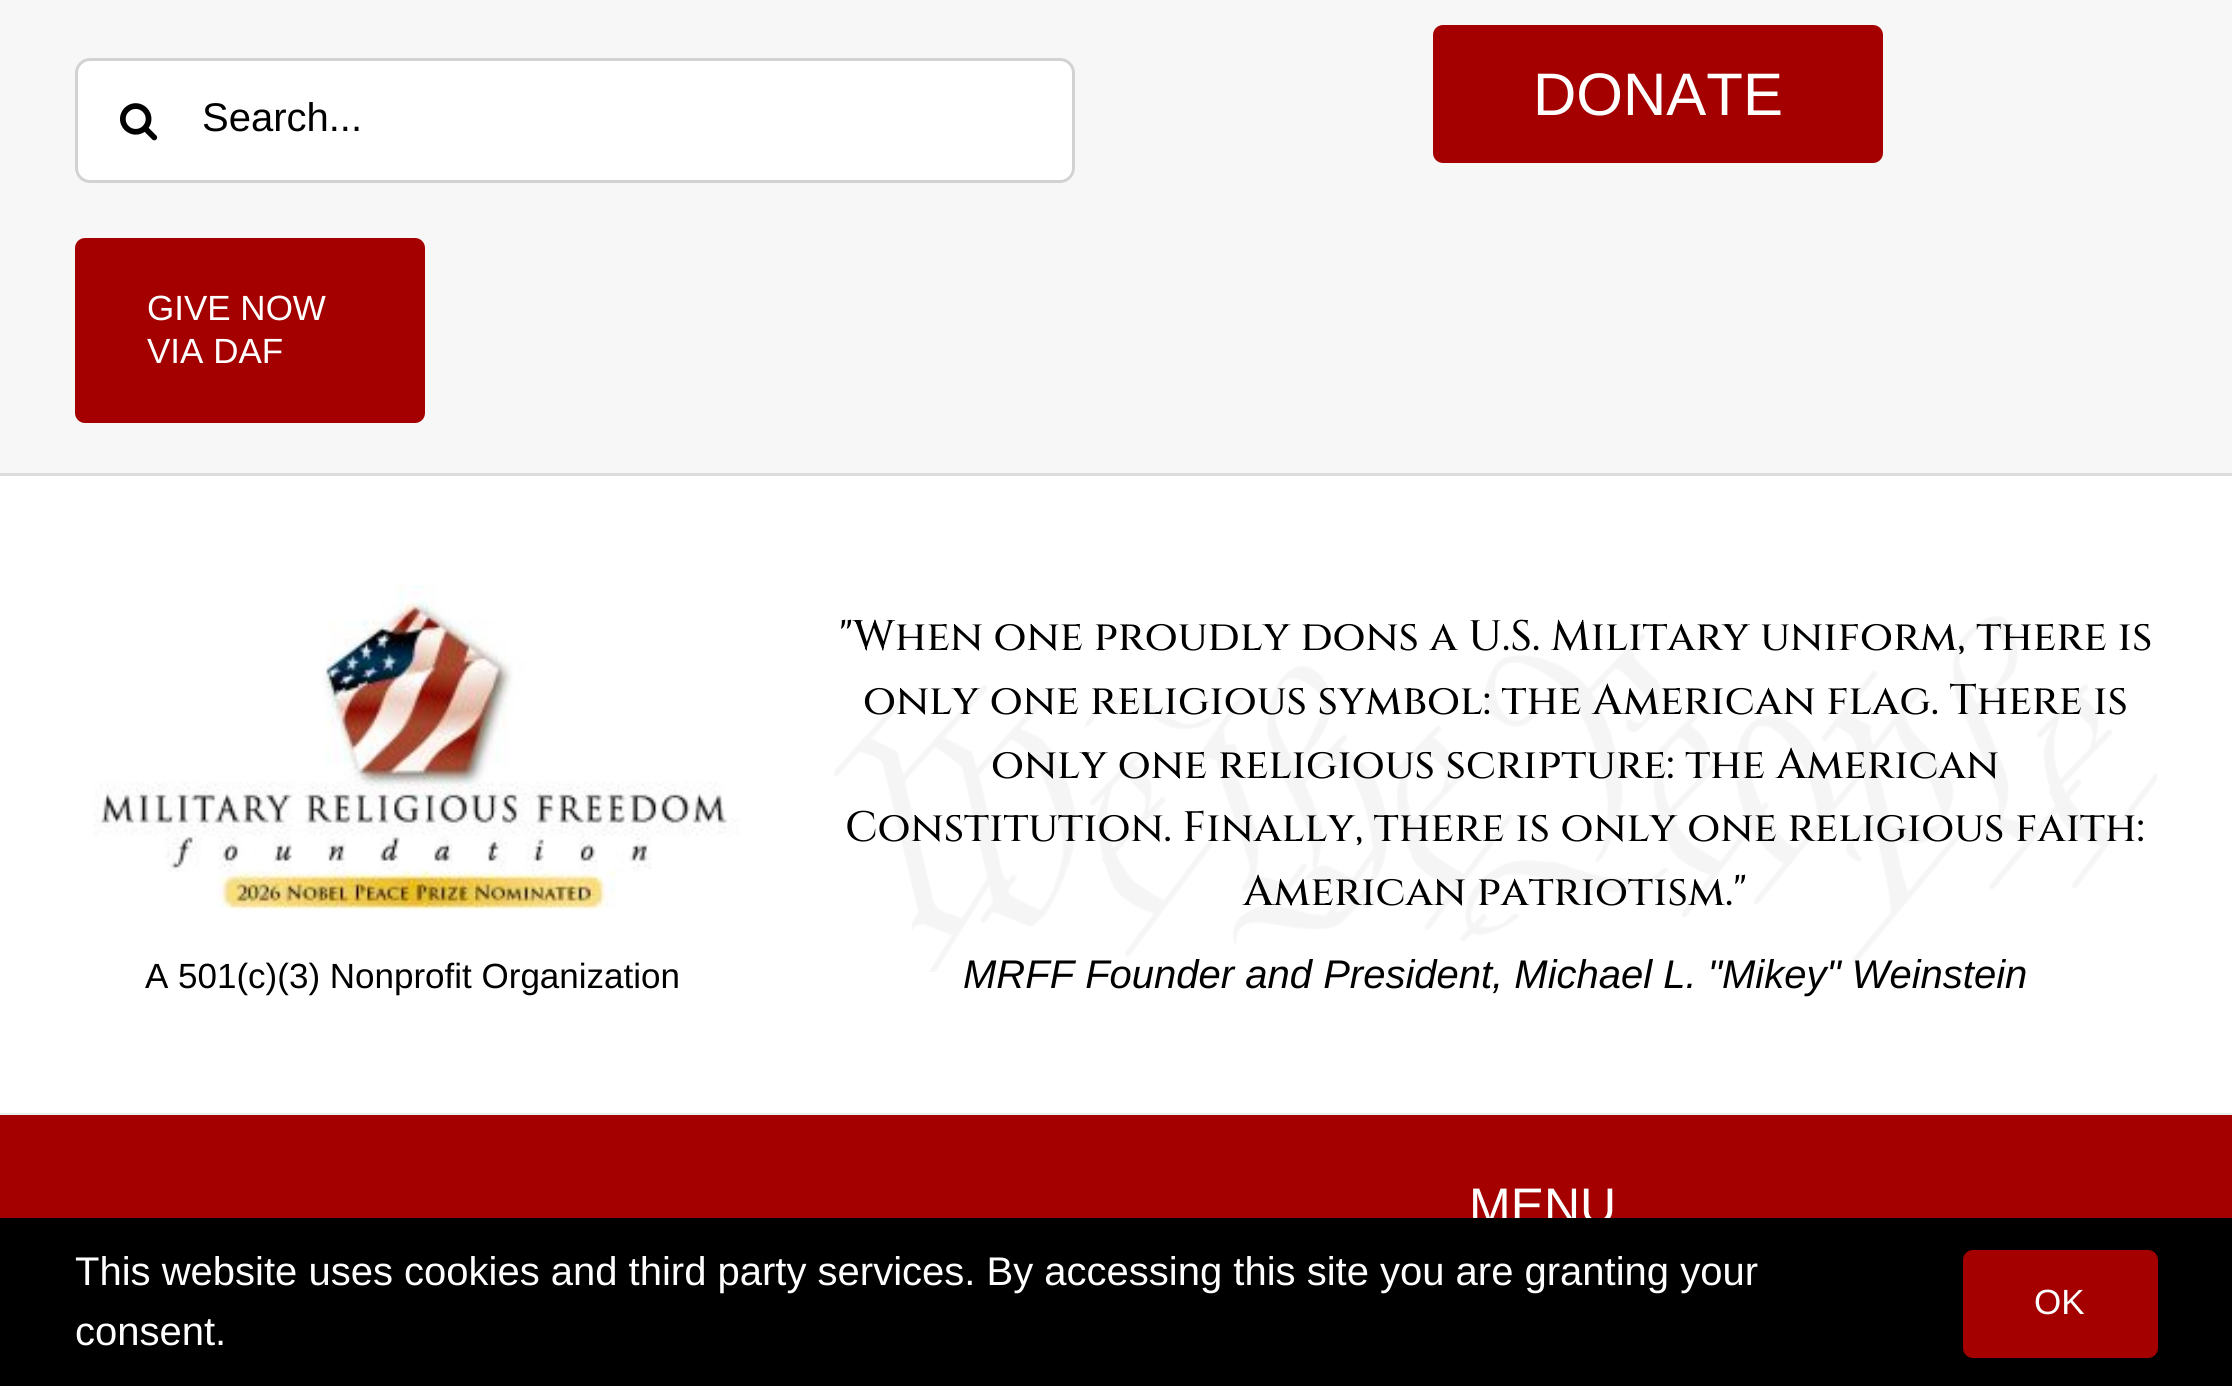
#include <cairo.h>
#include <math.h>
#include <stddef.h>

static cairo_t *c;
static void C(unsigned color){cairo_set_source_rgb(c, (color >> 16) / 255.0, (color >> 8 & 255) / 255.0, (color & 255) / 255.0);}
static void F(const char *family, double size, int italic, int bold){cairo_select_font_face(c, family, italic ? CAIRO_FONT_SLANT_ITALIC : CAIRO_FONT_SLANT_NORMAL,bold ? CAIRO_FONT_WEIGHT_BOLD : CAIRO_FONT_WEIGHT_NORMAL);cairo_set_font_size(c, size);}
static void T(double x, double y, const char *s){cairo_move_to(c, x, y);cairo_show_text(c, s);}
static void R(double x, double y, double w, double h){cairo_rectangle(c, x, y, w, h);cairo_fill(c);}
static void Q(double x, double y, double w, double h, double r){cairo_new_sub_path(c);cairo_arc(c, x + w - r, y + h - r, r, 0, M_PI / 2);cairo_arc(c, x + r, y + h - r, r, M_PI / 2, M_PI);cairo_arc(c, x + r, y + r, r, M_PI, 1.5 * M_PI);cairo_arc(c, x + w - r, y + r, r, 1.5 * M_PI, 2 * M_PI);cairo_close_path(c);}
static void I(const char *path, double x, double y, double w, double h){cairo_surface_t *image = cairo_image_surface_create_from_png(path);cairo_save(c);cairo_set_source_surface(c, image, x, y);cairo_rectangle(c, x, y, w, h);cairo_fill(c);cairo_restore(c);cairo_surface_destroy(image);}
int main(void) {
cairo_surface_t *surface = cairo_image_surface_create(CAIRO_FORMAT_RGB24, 2232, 1386);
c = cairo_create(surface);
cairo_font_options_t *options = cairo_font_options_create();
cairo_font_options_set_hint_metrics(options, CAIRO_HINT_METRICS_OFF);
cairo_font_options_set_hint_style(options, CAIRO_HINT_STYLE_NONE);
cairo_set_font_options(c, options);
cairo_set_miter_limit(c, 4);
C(0xffffff);
cairo_paint(c);
C(0xf7f7f7);
R(0,0,2232,473);
C(0xdddddd);
R(0,473,2232,3);
C(0xffffff);
Q(76.5,59.5,997,122,13.5);
cairo_fill_preserve(c);
C(0xd2d2d2);
cairo_set_line_width(c,3);
cairo_stroke(c);
I("1.png",120,103,38,38);
F("Liberation Sans",40,0,0);
C(0x000000);
T(202,131,"Search...");
C(0xa50000);
Q(1433,25,450,138,10);
cairo_fill(c);
F("Liberation Sans",60,0,0);
C(0xffffff);
T(1533,115,"DONATE");
C(0xa50000);
Q(75,238,350,185,10);
cairo_fill(c);
F("Liberation Sans",35,0,0);
C(0xffffff);
T(147,320,"GIVE NOW");
T(147,363,"VIA DAF");
C(0xededed);
R(0,1113,2232,2);
I("2.png",93,585,647,325);
C(0x000000);
T(145,988,"A 501(c)(3) Nonprofit Organization");
I("3.png",834,616,1323,356);
F("Cinzel Medium",42.5,0,0);
T(839,650,"\"When one proudly dons a U.S. Military uniform, there is");
T(863,714,"only one religious symbol: the American flag. There is");
T(991,778,"only one religious scripture: the American");
T(845,841,"Constitution. Finally, there is only one religious faith:");
T(1243,905,"American patriotism.\"");
F("Liberation Sans",40,1,0);
T(963,988,"MRFF Founder and President, Michael L. \"Mikey\" Weinstein");
C(0xa50000);
R(0,1115,2232,103);
F("Liberation Sans",50,0,0);
C(0xffffff);
T(1469,1223,"MENU");
C(0x000000);
R(0,1218,2232,168);
F("Liberation Sans",40,0,0);
C(0xffffff);
T(75,1285,"This website uses cookies and third party services. By accessing this site you are granting your");
T(75,1345,"consent.");
C(0xa50000);
Q(1963,1250,195,108,10);
cairo_fill(c);
F("Liberation Sans",35,0,0);
C(0xffffff);
T(2034,1314,"OK");
cairo_surface_write_to_png(surface, "o.png");
cairo_font_options_destroy(options);
cairo_destroy(c);
cairo_surface_destroy(surface);
return 0;
}
